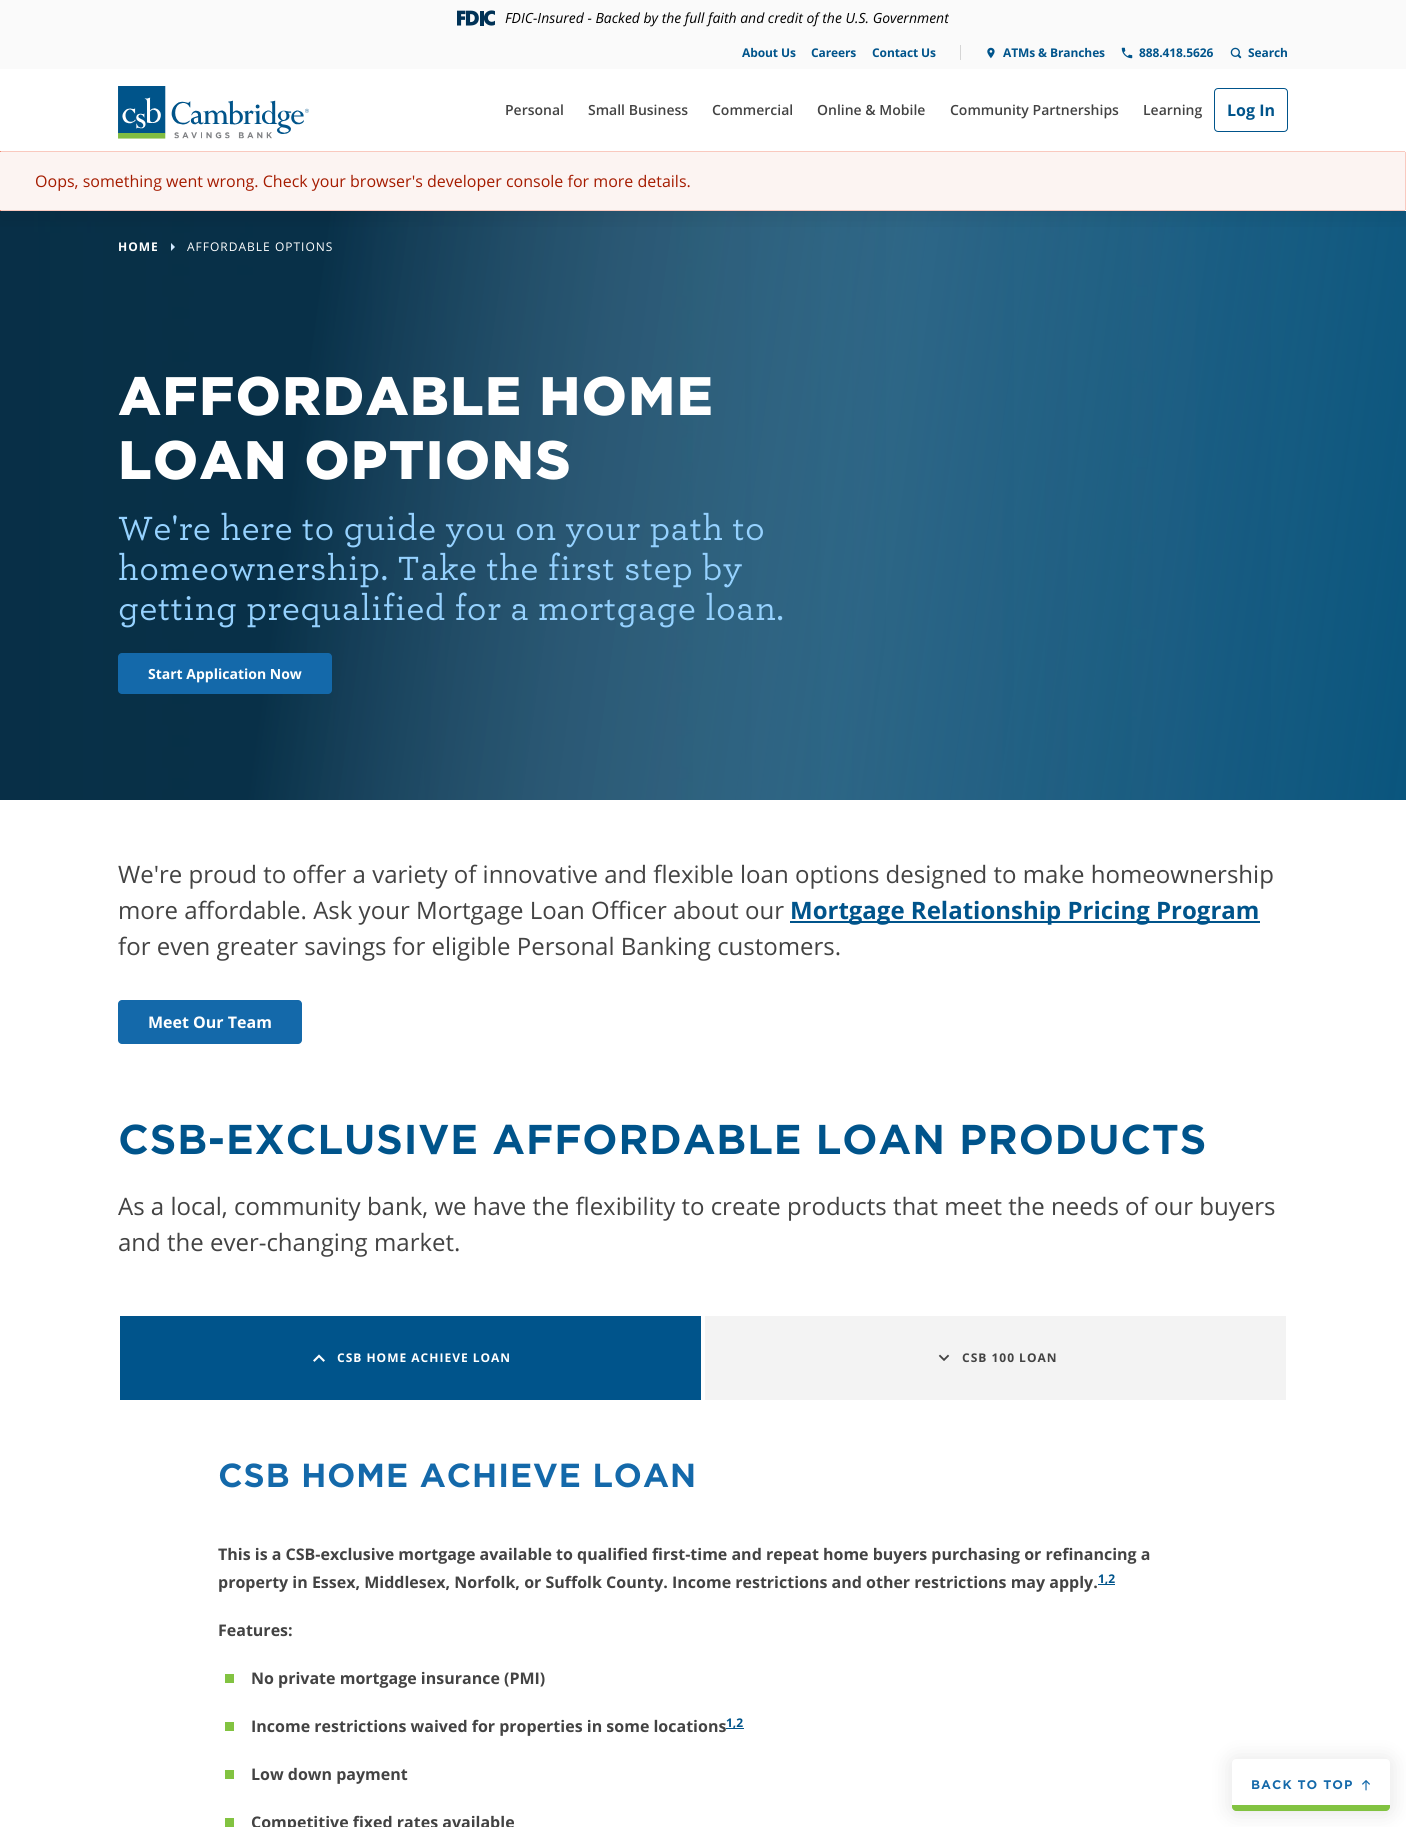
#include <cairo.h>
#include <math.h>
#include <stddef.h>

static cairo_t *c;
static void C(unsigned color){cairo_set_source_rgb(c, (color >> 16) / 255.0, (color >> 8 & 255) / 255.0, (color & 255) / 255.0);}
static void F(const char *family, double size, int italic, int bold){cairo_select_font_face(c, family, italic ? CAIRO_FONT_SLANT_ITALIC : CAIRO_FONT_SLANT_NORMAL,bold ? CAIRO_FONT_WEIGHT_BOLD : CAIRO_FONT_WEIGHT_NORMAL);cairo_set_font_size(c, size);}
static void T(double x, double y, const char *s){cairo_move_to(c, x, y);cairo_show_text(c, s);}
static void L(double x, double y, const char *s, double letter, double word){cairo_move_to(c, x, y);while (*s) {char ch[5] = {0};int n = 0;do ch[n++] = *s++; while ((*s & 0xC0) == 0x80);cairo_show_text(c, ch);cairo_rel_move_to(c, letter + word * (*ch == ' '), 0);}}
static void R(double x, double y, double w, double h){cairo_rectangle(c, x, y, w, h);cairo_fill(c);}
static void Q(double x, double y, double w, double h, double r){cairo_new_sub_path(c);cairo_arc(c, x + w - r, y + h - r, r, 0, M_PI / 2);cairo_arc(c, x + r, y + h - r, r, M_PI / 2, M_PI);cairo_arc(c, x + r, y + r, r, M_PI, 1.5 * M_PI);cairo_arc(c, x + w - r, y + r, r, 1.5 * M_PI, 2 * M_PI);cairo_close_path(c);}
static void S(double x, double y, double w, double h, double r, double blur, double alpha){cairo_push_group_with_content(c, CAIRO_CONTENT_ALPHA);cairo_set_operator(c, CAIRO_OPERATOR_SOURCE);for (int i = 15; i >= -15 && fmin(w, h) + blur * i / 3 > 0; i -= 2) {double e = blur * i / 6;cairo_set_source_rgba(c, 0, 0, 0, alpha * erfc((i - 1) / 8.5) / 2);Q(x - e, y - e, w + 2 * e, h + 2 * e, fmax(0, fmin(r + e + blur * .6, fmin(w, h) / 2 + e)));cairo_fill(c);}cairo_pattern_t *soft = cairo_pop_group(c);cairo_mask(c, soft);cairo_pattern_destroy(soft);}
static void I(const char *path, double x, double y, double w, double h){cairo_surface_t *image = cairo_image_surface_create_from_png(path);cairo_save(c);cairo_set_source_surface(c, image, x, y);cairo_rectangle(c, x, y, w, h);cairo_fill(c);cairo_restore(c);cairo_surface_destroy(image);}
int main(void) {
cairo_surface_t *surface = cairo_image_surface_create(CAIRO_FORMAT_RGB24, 1406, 1827);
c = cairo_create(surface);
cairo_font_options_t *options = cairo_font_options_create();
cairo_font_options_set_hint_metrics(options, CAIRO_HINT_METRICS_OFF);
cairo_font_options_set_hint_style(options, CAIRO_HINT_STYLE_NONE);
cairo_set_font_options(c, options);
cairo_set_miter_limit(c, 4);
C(0xffffff);
cairo_paint(c);
I("6.png",0,211,1406,589);
C(0xd1e9ff);
cairo_new_path(c);
cairo_move_to(c,171,251);
cairo_line_to(c,171,243);
cairo_line_to(c,175,247);
cairo_close_path(c);
cairo_fill(c);
cairo_save(c);
cairo_rectangle(c,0,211,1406,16);
cairo_clip(c);
C(0x000000);
S(-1,37,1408,177,0,15,.1);
cairo_restore(c);
C(0xfafafa);
R(0,0,1406,69);
I("1.png",457,10,38,16);
F("Open Sans",14,1,0);
C(0x000000);
T(505,23,"FDIC-Insured - Backed by the full faith and credit of the U.S. Government");
F("Open Sans",12,0,1);
C(0x00548b);
L(742,57,"About Us",-.1,0);
L(811,57,"Careers",-.1,0);
L(872,57,"Contact Us",-.1,0);
C(0xd5d5d5);
R(960,45,1,15);
I("2.png",987,47,8,12);
C(0x00548b);
L(1003,57,"ATMs & Branches",-.1,0);
I("3.png",1121,47,12,12);
L(1139,57,"888.418.5626",-.1,0);
I("4.png",1230,47,12,12);
L(1248,57,"Search",-.1,0);
I("5.png",118,86,191,53);
F("Open Sans SemiBold",14,0,0);
C(0x434343);
T(505,115,"Personal");
T(588,115,"Small Business");
T(712,115,"Commercial");
T(817,115,"Online & Mobile");
T(950,115,"Community Partnerships");
T(1143,115,"Learning");
Q(1214.5,88.5,73,43,3.5);
C(0x00548b);
cairo_set_line_width(c,1);
cairo_stroke(c);
F("Open Sans",16,0,1);
T(1227,116,"Log In");
C(0xe62600);
cairo_new_path(c);
cairo_move_to(c,-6,151);
cairo_curve_to(c,-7,151,-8,152,-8,153);
cairo_line_to(c,-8,209);
cairo_curve_to(c,-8,210,-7,211,-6,211);
cairo_line_to(c,2,211);
cairo_line_to(c,0,210);
cairo_line_to(c,0,152);
cairo_line_to(c,2,151);
cairo_close_path(c);
cairo_fill(c);
C(0xfcf4f2);
Q(0,151,1406,60,2);
cairo_fill(c);
C(0xf9c9bf);
R(1,151,1404,1);
R(1405,152,1,58);
R(1,210,1404,1);
F("Open Sans",16,0,0);
C(0xa51b00);
T(35,187,"Oops, something went wrong. Check your browser's developer console for more details.");
F("Open Sans",12,0,1);
C(0xffffff);
L(118,251,"HOME",1,0);
F("Open Sans",12,0,0);
L(187,251,"AFFORDABLE OPTIONS",1,0);
F("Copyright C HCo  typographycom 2",52,0,0);
L(118,415,"AFFORDABLE HOME",1,0);
L(118,479,"LOAN OPTIONS",1,0);
F("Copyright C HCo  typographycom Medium",32,0,0);
C(0x96d2ff);
L(118,540,"We're here to guide you on your path to",.3,0);
L(118,580,"homeownership. Take the first step by",.3,0);
L(118,620,"getting prequalified for a mortgage loan.",.3,0);
C(0x1469aa);
Q(118,653,214,41,4);
cairo_fill(c);
F("Open Sans",14,0,1);
C(0xffffff);
T(148,679,"Start Application Now");
F("Open Sans",24,0,0);
C(0x434343);
T(118,883,"We're proud to offer a variety of innovative and flexible loan options designed to make homeownership");
T(118,919,"more affordable. Ask your Mortgage Loan Officer about our");
C(0x00548b);
R(790,921,470,2);
F("Open Sans",24,0,1);
T(790,919,"Mortgage Relationship Pricing Program");
F("Open Sans",24,0,0);
C(0x434343);
T(118,955,"for even greater savings for eligible Personal Banking customers.");
C(0x1469aa);
Q(118,1000,184,44,4);
cairo_fill(c);
F("Open Sans",16,0,1);
C(0xffffff);
T(148,1028,"Meet Our Team");
F("Copyright C HCo  typographycom",40,0,0);
C(0x00548b);
L(118,1154,"CSB-EXCLUSIVE AFFORDABLE LOAN PRODUCTS",.5,0);
F("Open Sans",24,0,0);
C(0x434343);
T(118,1215,"As a local, community bank, we have the flexibility to create products that meet the needs of our buyers");
T(118,1251,"and the ever-changing market.");
C(0x00548b);
R(120,1316,581,84);
I("7.png",313,1354,12,8);
F("Open Sans",12,0,1);
C(0xffffff);
L(337,1362,"CSB HOME ACHIEVE LOAN",1,0);
F("Copyright C HCo  typographycom",32,0,0);
C(0x1469aa);
L(218,1487,"CSB HOME ACHIEVE LOAN",.5,0);
F("Open Sans",16,0,1);
C(0x434343);
T(218,1560,"This is a CSB-exclusive mortgage available to qualified first-time and repeat home buyers purchasing or refinancing a");
T(218,1588,"property in Essex, Middlesex, Norfolk, or Suffolk County. Income restrictions and other restrictions may apply.");
C(0x00548b);
R(1098,1584,17,1);
F("Open Sans",12,0,1);
T(1098,1583,"1,2");
F("Open Sans",16,0,1);
C(0x434343);
T(218,1636,"Features:");
C(0x82c341);
R(225,1674,9,9);
C(0x434343);
T(251,1684,"No private mortgage insurance (PMI)");
C(0x82c341);
R(225,1722,9,9);
C(0x434343);
T(251,1732,"Income restrictions waived for properties in some locations");
C(0x00548b);
R(726,1728,18,1);
F("Open Sans",12,0,1);
T(726,1727,"1,2");
C(0x82c341);
R(225,1770,9,9);
F("Open Sans",16,0,1);
C(0x434343);
T(251,1780,"Low down payment");
C(0x82c341);
R(225,1818,9,9);
C(0x434343);
T(251,1828,"Competitive fixed rates available");
C(0xf3f3f3);
R(705,1316,581,84);
I("8.png",938,1354,12,7);
F("Open Sans",12,0,1);
C(0x434343);
L(962,1362,"CSB 100 LOAN",1,0);
C(0x000000);
S(1230,1758,162,56,6,10,.1);
C(0xffffff);
Q(1232,1759,158,52,4);
cairo_fill(c);
F("Copyright C HCo  typographycom",12,0,0);
C(0x1469aa);
L(1251,1789,"BACK TO TOP",1,0);
I("9.png",1362,1780,8,11);
C(0x82c341);
cairo_new_path(c);
cairo_move_to(c,1232,1805);
cairo_line_to(c,1390,1805);
cairo_line_to(c,1390,1807);
cairo_curve_to(c,1390,1809,1388,1811,1386,1811);
cairo_line_to(c,1236,1811);
cairo_curve_to(c,1234,1811,1232,1809,1232,1807);
cairo_close_path(c);
cairo_fill(c);
cairo_surface_write_to_png(surface, "o.png");
cairo_font_options_destroy(options);
cairo_destroy(c);
cairo_surface_destroy(surface);
return 0;
}
